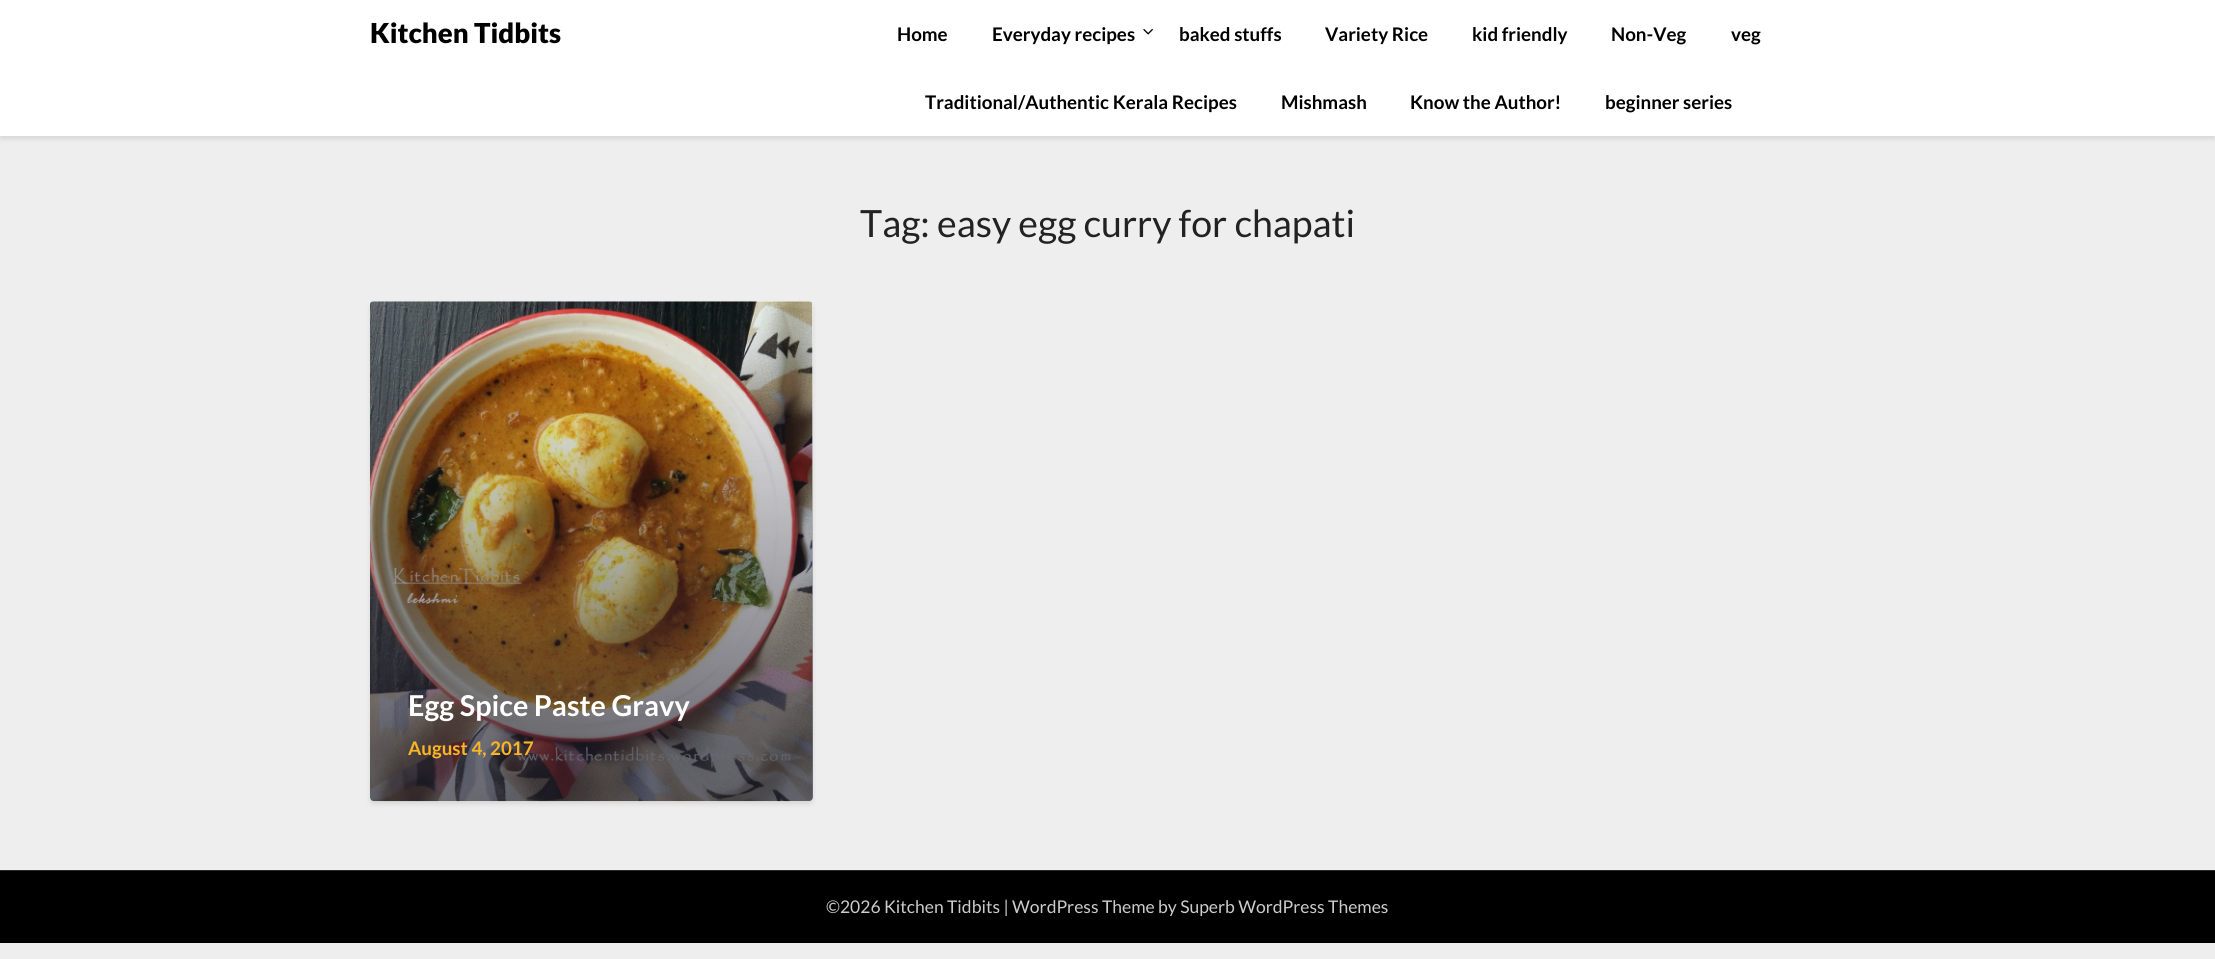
#include <cairo.h>
#include <math.h>
#include <stddef.h>

static cairo_t *c;
static void C(unsigned color){cairo_set_source_rgb(c, (color >> 16) / 255.0, (color >> 8 & 255) / 255.0, (color & 255) / 255.0);}
static void F(const char *family, double size, int italic, int bold){cairo_select_font_face(c, family, italic ? CAIRO_FONT_SLANT_ITALIC : CAIRO_FONT_SLANT_NORMAL,bold ? CAIRO_FONT_WEIGHT_BOLD : CAIRO_FONT_WEIGHT_NORMAL);cairo_set_font_size(c, size);}
static void T(double x, double y, const char *s){cairo_move_to(c, x, y);cairo_show_text(c, s);}
static void R(double x, double y, double w, double h){cairo_rectangle(c, x, y, w, h);cairo_fill(c);}
static void Q(double x, double y, double w, double h, double r){cairo_new_sub_path(c);cairo_arc(c, x + w - r, y + h - r, r, 0, M_PI / 2);cairo_arc(c, x + r, y + h - r, r, M_PI / 2, M_PI);cairo_arc(c, x + r, y + r, r, M_PI, 1.5 * M_PI);cairo_arc(c, x + w - r, y + r, r, 1.5 * M_PI, 2 * M_PI);cairo_close_path(c);}
static void S(double x, double y, double w, double h, double r, double blur, double alpha){cairo_push_group_with_content(c, CAIRO_CONTENT_ALPHA);cairo_set_operator(c, CAIRO_OPERATOR_SOURCE);for (int i = 15; i >= -15 && fmin(w, h) + blur * i / 3 > 0; i -= 2) {double e = blur * i / 6;cairo_set_source_rgba(c, 0, 0, 0, alpha * erfc((i - 1) / 8.5) / 2);Q(x - e, y - e, w + 2 * e, h + 2 * e, fmax(0, fmin(r + e + blur * .6, fmin(w, h) / 2 + e)));cairo_fill(c);}cairo_pattern_t *soft = cairo_pop_group(c);cairo_mask(c, soft);cairo_pattern_destroy(soft);}
static void I(const char *path, double x, double y, double w, double h){cairo_surface_t *image = cairo_image_surface_create_from_png(path);cairo_save(c);cairo_set_source_surface(c, image, x, y);cairo_rectangle(c, x, y, w, h);cairo_fill(c);cairo_restore(c);cairo_surface_destroy(image);}
int main(void) {
cairo_surface_t *surface = cairo_image_surface_create(CAIRO_FORMAT_RGB24, 2215, 959);
c = cairo_create(surface);
cairo_font_options_t *options = cairo_font_options_create();
cairo_font_options_set_hint_metrics(options, CAIRO_HINT_METRICS_OFF);
cairo_font_options_set_hint_style(options, CAIRO_HINT_STYLE_NONE);
cairo_set_font_options(c, options);
cairo_set_miter_limit(c, 4);
cairo_pattern_t *gradient;
C(0xeeeeee);
cairo_paint(c);
C(0x000000);
S(0,3,2215,136,0,2.5,.1);
C(0xffffff);
R(0,0,2215,136);
F("Lato Black",27.5,0,0);
C(0x000000);
T(370,43,"Kitchen Tidbits");
F("Lato",18.75,0,1);
T(897,41,"Home");
T(992,41,"Everyday recipes");
I("1.png",1143,28,10,7);
T(1179,41,"baked stuffs");
T(1325,41,"Variety Rice");
T(1472,41,"kid friendly");
T(1611,41,"Non-Veg");
T(1731,41,"veg");
T(925,109,"Traditional/Authentic Kerala Recipes");
T(1281,109,"Mishmash");
T(1410,109,"Know the Author!");
T(1605,109,"beginner series");
F("Lato",37.5,0,0);
C(0x222222);
T(860,237,"Tag: easy egg curry for chapati");
C(0x000000);
S(370,304,443,500,4,2.5,.1);
C(0xffffff);
Q(370,301,443,500,4);
cairo_fill(c);
I("2.png",370,301,443,501);
gradient = cairo_pattern_create_linear(591,301,591,801);
cairo_pattern_add_color_stop_rgba(gradient,0,0.125,0.118,0.173,0);
cairo_pattern_add_color_stop_rgba(gradient,.88,0.125,0.118,0.173,.64);
cairo_pattern_add_color_stop_rgba(gradient,.89,0.125,0.118,0.173,.65);
cairo_set_source(c,gradient);
cairo_pattern_destroy(gradient);
Q(370,301,443,500,4);
cairo_fill(c);
F("Lato",28.75,0,1);
C(0xffffff);
T(408,716,"Egg Spice Paste Gravy");
F("Lato",18.75,0,1);
C(0xfab526);
T(408,755,"August 4, 2017");
C(0x000000);
R(0,871,2215,72);
C(0x292929);
R(0,870,2215,1);
F("Lato",17.5,0,0);
C(0xcccccc);
T(826,913,"©2026 Kitchen Tidbits | WordPress Theme by Superb WordPress Themes");
cairo_surface_write_to_png(surface, "o.png");
cairo_font_options_destroy(options);
cairo_destroy(c);
cairo_surface_destroy(surface);
return 0;
}
